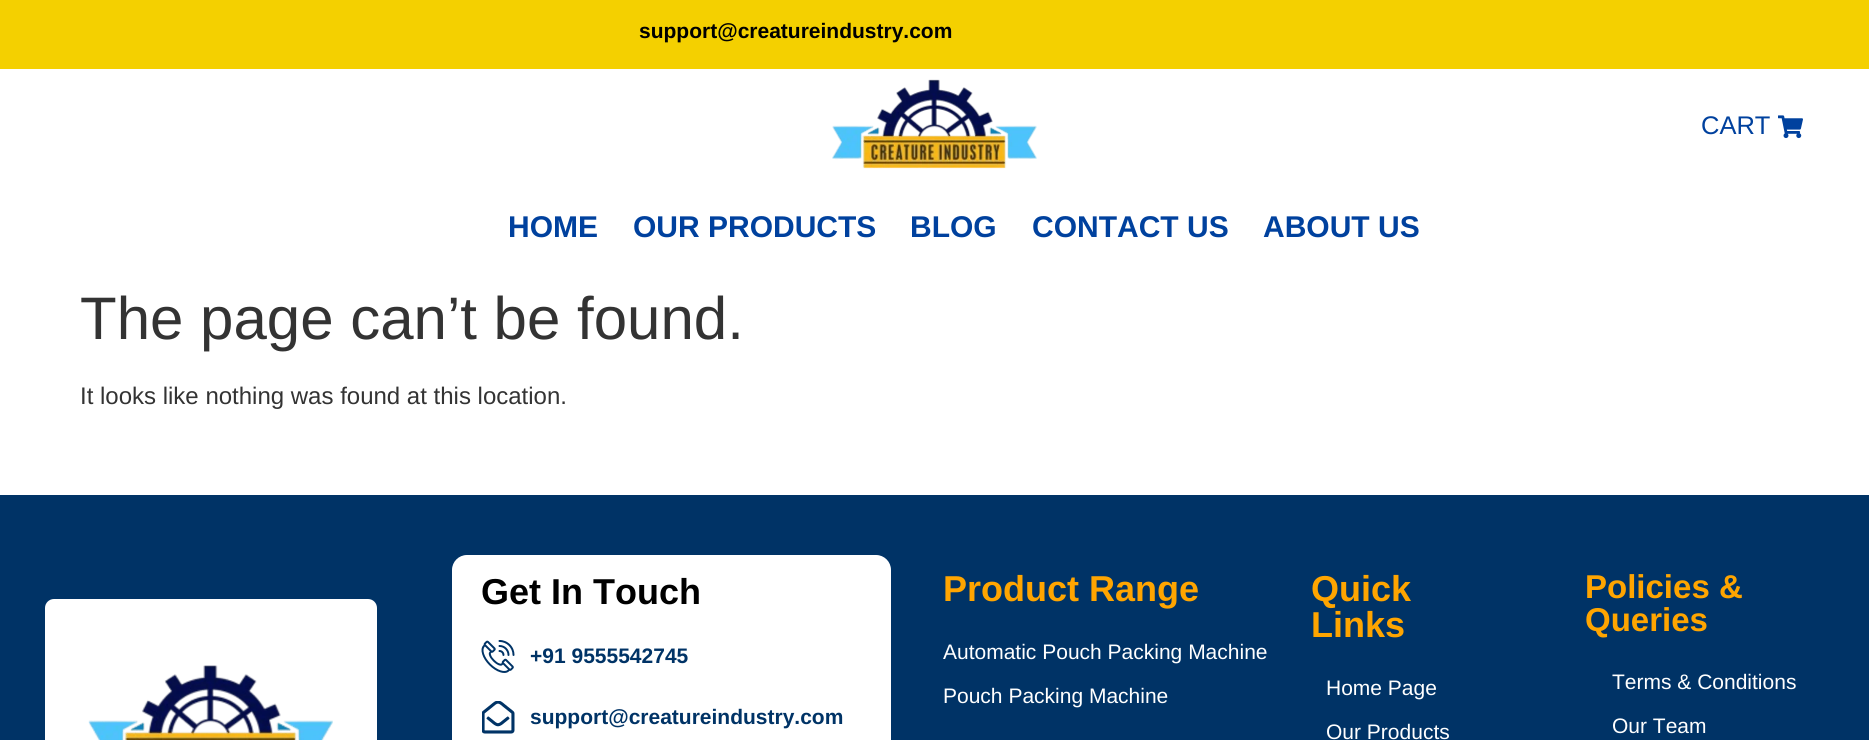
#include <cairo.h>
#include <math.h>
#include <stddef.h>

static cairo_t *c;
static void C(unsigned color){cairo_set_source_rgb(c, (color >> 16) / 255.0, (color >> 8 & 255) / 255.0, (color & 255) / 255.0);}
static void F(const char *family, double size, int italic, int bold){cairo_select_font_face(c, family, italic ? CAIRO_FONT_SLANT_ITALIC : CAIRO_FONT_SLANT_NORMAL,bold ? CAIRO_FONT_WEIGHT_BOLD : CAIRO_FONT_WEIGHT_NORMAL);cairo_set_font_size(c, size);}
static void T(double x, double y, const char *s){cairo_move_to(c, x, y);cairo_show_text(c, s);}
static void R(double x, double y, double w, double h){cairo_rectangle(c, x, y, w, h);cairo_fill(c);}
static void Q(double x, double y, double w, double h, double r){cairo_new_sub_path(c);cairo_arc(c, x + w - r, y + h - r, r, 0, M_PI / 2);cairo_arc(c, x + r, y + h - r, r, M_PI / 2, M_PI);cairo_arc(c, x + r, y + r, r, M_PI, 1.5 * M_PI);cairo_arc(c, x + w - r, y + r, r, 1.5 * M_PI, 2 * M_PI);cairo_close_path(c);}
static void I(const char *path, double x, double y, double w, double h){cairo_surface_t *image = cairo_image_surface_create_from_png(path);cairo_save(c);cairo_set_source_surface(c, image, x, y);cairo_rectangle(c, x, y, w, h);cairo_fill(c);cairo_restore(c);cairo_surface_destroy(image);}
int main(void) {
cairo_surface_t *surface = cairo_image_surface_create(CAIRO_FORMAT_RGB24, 1869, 740);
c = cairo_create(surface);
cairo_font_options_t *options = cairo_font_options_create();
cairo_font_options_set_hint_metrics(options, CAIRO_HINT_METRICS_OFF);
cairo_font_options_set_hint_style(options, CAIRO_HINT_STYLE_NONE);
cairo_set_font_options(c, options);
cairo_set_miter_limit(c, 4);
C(0xffffff);
cairo_paint(c);
C(0xf4d000);
R(0,0,1869,69);
F("Liberation Sans",21,0,1);
C(0x000000);
T(639,38,"support@creatureindustry.com");
I("1.png",832,79,205,90);
F("Liberation Sans",25.5,0,0);
C(0x00419e);
T(1701,134,"CART");
I("2.png",1778,115,25,24);
F("Liberation Sans",30,0,1);
T(508,237,"HOME");
T(633,237,"OUR PRODUCTS");
T(910,237,"BLOG");
T(1032,237,"CONTACT US");
T(1263,237,"ABOUT US");
F("Liberation Sans",60,0,0);
C(0x333333);
T(80,339,"The page can’t be found.");
F("Liberation Sans",24,0,0);
T(80,404,"It looks like nothing was found at this location.");
C(0x003366);
R(0,495,1869,245);
C(0xffffff);
Q(45,599,332,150,9);
cairo_fill(c);
I("3.png",88,665,245,75);
Q(452,555,439,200,15);
cairo_fill(c);
F("Liberation Sans",36,0,1);
C(0x000000);
T(481,604,"Get In Touch");
I("4.png",481,640,34,33);
F("Liberation Sans",21,0,1);
C(0x003366);
T(530,663,"+91 9555542745");
I("5.png",482,701,33,33);
T(530,724,"support@creatureindustry.com");
F("Liberation Sans",36,0,1);
C(0xffa500);
T(943,601,"Product Range");
F("Liberation Sans",21,0,0);
C(0xffffff);
T(943,659,"Automatic Pouch Packing Machine");
T(943,703,"Pouch Packing Machine");
F("Liberation Sans",36,0,1);
C(0xffa500);
T(1311,601,"Quick");
T(1311,637,"Links");
F("Liberation Sans",21,0,0);
C(0xffffff);
T(1326,695,"Home Page");
T(1326,739,"Our Products");
F("Liberation Sans",33,0,1);
C(0xffa500);
T(1585,598,"Policies &");
T(1585,631,"Queries");
F("Liberation Sans",21,0,0);
C(0xffffff);
T(1612,689,"Terms & Conditions");
T(1612,733,"Our Team");
cairo_surface_write_to_png(surface, "o.png");
cairo_font_options_destroy(options);
cairo_destroy(c);
cairo_surface_destroy(surface);
return 0;
}
